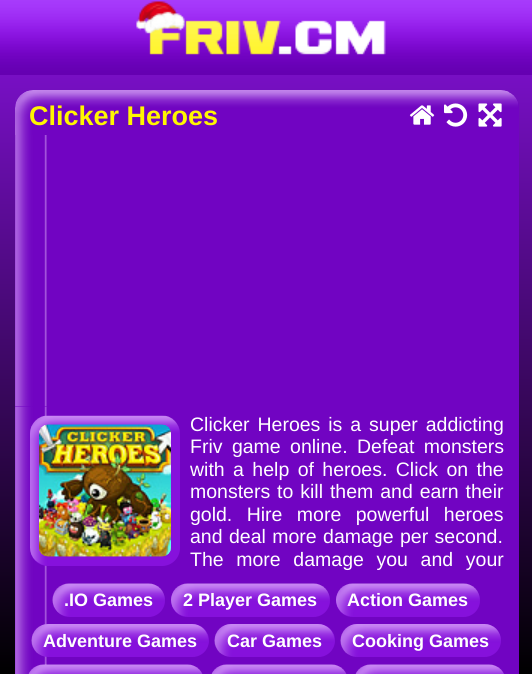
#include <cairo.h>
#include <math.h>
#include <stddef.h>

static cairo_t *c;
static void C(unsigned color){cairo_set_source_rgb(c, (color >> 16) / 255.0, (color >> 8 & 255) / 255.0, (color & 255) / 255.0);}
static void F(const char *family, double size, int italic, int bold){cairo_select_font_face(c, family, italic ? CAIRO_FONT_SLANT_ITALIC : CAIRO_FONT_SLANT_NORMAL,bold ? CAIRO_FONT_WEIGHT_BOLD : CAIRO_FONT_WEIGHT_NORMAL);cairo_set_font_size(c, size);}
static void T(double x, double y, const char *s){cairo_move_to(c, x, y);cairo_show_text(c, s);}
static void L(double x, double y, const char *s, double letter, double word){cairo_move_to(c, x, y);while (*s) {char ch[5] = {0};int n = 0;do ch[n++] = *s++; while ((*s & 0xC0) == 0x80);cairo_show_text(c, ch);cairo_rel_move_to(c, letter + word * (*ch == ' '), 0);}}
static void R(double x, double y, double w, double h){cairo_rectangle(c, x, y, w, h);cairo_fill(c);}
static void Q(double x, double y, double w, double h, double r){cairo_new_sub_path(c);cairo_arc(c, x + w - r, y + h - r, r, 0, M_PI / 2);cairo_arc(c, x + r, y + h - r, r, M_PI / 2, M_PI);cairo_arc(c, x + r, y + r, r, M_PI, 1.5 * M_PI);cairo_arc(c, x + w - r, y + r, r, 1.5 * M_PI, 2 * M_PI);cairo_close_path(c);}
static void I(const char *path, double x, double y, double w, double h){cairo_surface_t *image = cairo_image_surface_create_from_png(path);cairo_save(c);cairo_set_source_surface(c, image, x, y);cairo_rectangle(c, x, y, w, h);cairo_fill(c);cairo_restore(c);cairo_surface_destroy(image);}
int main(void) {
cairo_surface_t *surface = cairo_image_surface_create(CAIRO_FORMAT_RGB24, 532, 674);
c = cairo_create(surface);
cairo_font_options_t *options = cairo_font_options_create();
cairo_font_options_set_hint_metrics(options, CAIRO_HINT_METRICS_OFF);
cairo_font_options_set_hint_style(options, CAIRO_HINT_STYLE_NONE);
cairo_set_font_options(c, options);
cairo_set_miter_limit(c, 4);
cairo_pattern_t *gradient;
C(0xffffff);
cairo_paint(c);
gradient = cairo_pattern_create_linear(266,0,266,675);
cairo_pattern_add_color_stop_rgba(gradient,0,0.525,0.067,0.863,1);
cairo_pattern_add_color_stop_rgba(gradient,1,0,0,0,1);
cairo_set_source(c,gradient);
cairo_pattern_destroy(gradient);
R(0,75,532,599);
I("1.png",0,0,532,75);
C(0x7104c2);
cairo_new_path(c);
cairo_move_to(c,33,90);
cairo_line_to(c,501,90);
cairo_curve_to(c,511,90,519,98,519,108);
cairo_line_to(c,519,135);
cairo_line_to(c,15,135);
cairo_line_to(c,15,108);
cairo_curve_to(c,15,98,23,90,33,90);
cairo_close_path(c);
cairo_fill(c);
I("2.png",15,90,503,45);
F("Liberation Sans",27,0,1);
C(0xfff600);
T(29,125,"Clicker Heroes");
I("3.png",409,105,26,20);
I("4.png",444,103,24,24);
I("5.png",478,103,24,24);
C(0x7104c2);
R(15,135,504,539);
I("6.png",15,135,32,272);
I("7.png",15,407,32,267);
C(0x8611dc);
Q(30,416,150,150,18);
cairo_fill(c);
I("8.png",30,415,150,150);
I("9.png",39,424,132,133);
F("Liberation Sans",19.5,0,0);
C(0xffffff);
L(190,431,"Clicker Heroes is a super addicting",0,2.5);
L(190,453,"Friv game online. Defeat monsters",0,4);
L(190,476,"with a help of heroes. Click on the",0,3);
L(190,498,"monsters to kill them and earn their",0,1.5);
L(190,521,"gold. Hire more powerful heroes",0,9);
L(190,543,"and deal more damage per second.",0,1);
L(190,566,"The more damage you and your",0,7.25);
C(0x8611dc);
Q(53,584,112,33,16.5);
cairo_fill(c);
I("10.png",52,583,113,33);
F("Liberation Sans",18,0,1);
C(0xffffff);
T(64,606,".IO Games");
C(0x8611dc);
Q(171,584,159,33,16.5);
cairo_fill(c);
I("11.png",171,583,159,33);
C(0xffffff);
T(183,606,"2 Player Games");
C(0x8611dc);
Q(336,584,144,33,16.5);
cairo_fill(c);
I("12.png",336,583,144,33);
C(0xffffff);
T(347,606,"Action Games");
C(0x8611dc);
Q(32,624,177,33,16.5);
cairo_fill(c);
I("13.png",31,624,177,33);
C(0xffffff);
T(43,647,"Adventure Games");
C(0x8611dc);
Q(215,624,120,33,16.5);
cairo_fill(c);
I("14.png",214,624,120,33);
C(0xffffff);
T(227,647,"Car Games");
C(0x8611dc);
Q(341,624,160,33,16.5);
cairo_fill(c);
I("15.png",340,624,161,33);
C(0xffffff);
T(352,647,"Cooking Games");
C(0x8611dc);
Q(27,665,177,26,16.5);
cairo_fill(c);
I("16.png",28,664,175,10);
Q(210,665,138,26,16.5);
cairo_fill(c);
I("17.png",211,664,136,10);
Q(354,665,152,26,16.5);
cairo_fill(c);
I("18.png",355,664,149,10);
cairo_surface_write_to_png(surface, "o.png");
cairo_font_options_destroy(options);
cairo_destroy(c);
cairo_surface_destroy(surface);
return 0;
}
